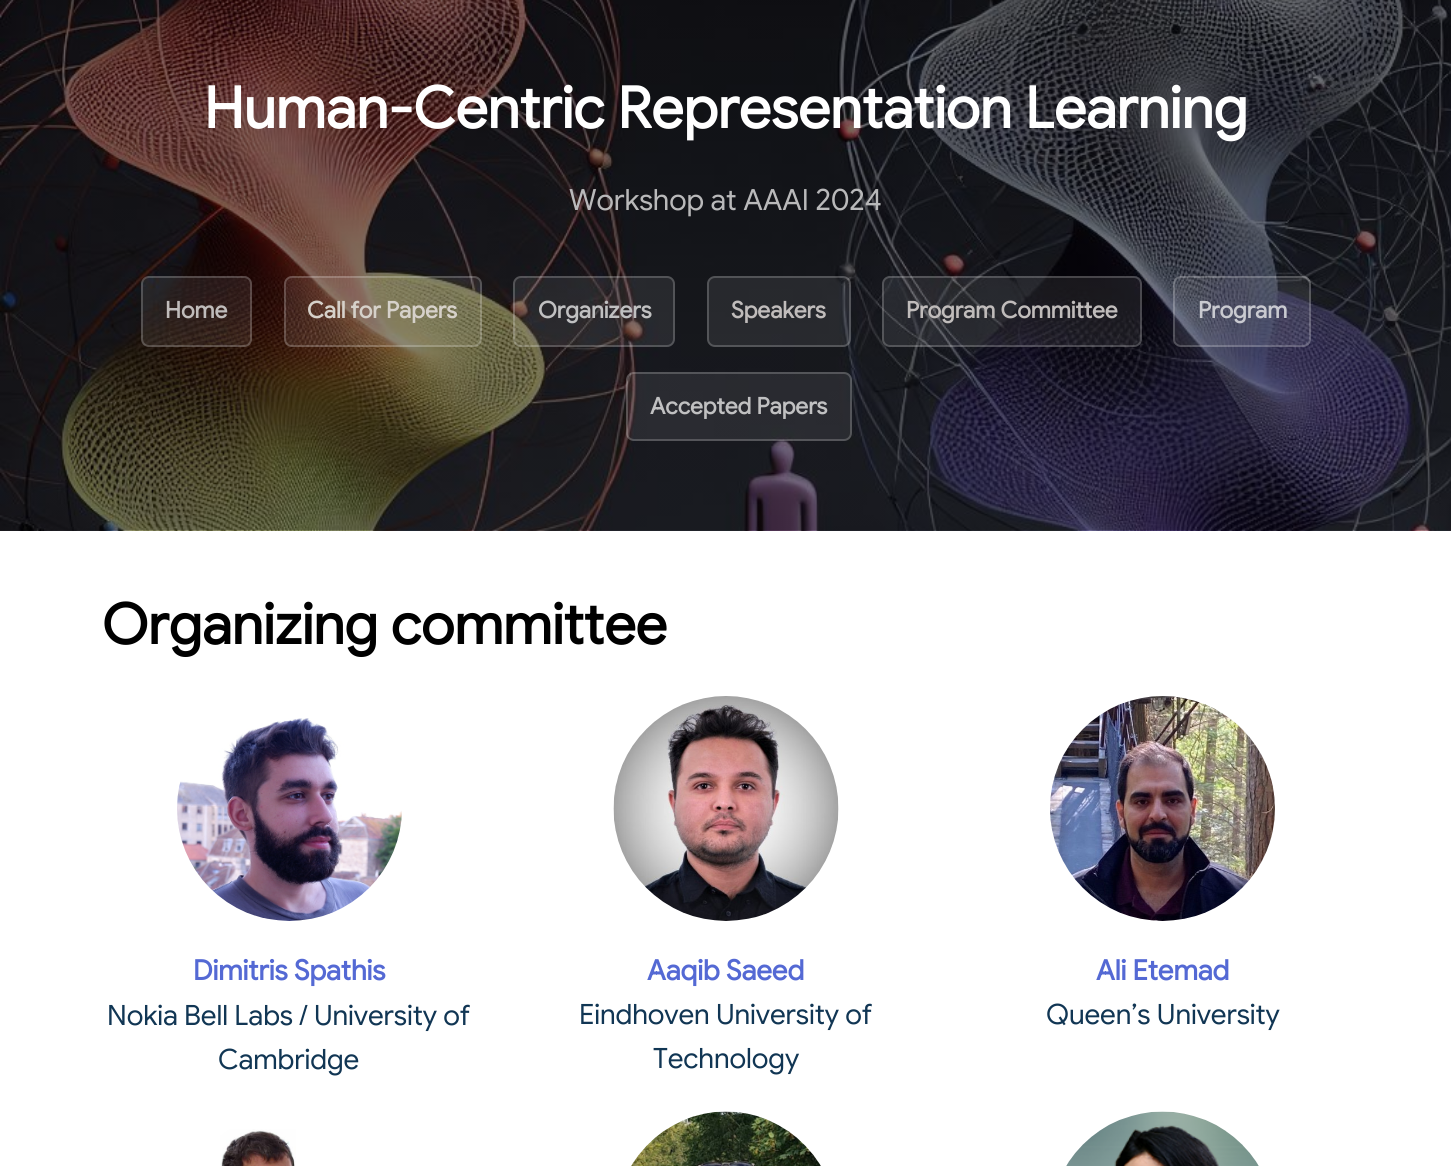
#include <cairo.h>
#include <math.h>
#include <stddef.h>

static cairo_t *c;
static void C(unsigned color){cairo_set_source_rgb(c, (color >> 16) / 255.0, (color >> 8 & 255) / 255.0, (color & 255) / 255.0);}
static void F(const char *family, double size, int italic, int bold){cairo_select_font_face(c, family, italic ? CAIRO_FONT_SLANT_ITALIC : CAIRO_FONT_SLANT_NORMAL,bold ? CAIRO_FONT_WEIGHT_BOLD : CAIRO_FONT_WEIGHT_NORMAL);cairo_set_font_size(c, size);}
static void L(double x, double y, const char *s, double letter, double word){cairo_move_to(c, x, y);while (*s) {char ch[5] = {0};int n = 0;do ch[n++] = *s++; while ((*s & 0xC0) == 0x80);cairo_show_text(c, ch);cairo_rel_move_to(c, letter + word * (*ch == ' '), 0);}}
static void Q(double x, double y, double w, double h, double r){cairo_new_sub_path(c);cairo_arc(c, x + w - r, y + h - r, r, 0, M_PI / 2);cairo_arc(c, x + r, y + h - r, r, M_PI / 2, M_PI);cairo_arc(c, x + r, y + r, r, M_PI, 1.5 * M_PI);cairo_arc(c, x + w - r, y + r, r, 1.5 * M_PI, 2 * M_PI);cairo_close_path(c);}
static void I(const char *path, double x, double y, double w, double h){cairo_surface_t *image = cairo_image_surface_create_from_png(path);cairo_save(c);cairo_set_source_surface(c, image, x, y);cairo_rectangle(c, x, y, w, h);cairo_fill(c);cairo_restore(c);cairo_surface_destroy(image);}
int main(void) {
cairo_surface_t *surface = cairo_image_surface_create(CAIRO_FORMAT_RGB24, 1451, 1166);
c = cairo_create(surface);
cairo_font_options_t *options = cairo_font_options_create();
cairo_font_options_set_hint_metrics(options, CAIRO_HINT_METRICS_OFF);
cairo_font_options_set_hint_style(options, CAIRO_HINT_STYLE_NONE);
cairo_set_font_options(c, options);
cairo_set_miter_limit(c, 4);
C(0xffffff);
cairo_paint(c);
I("1.png",0,0,1451,531);
F("Google Sans",57.4,0,1);
C(0xffffff);
L(204,128,"Human-Centric Representation Learning",-.1,0);
F("Google Sans",29.25,0,0);
C(0xb9b9ba);
L(569,210,"Workshop at AAAI 2024",-.1,0);
cairo_set_source_rgba(c,1,1,1,0.08);
Q(141,276,111,71,8);
cairo_fill(c);
Q(142,277,109,69,7);
cairo_set_source_rgba(c,1,1,1,0.2);
cairo_stroke(c);
F("Google Sans",23,0,1);
C(0xc0bcbb);
L(165,318,"Home",-.1,0);
cairo_set_source_rgba(c,1,1,1,0.08);
Q(284,276,198,71,8);
cairo_fill(c);
Q(285,277,196,69,7);
cairo_set_source_rgba(c,1,1,1,0.2);
cairo_stroke(c);
C(0xd6d1ca);
L(307,318,"Call for Papers",-.1,0);
cairo_set_source_rgba(c,1,1,1,0.08);
Q(513,276,162,71,8);
cairo_fill(c);
Q(514,277,160,69,7);
cairo_set_source_rgba(c,1,1,1,0.2);
cairo_stroke(c);
C(0xc0c0c1);
L(538,318,"Organizers",-.1,0);
cairo_set_source_rgba(c,1,1,1,0.08);
Q(707,276,144,71,8);
cairo_fill(c);
Q(708,277,142,69,7);
cairo_set_source_rgba(c,1,1,1,0.2);
cairo_stroke(c);
C(0xc0bcbb);
L(731,318,"Speakers",-.1,0);
cairo_set_source_rgba(c,1,1,1,0.08);
Q(882,276,260,71,8);
cairo_fill(c);
Q(883,277,258,69,7);
cairo_set_source_rgba(c,1,1,1,0.2);
cairo_stroke(c);
C(0xc0bcbb);
L(906,318,"Program Committee",-.1,0);
cairo_set_source_rgba(c,1,1,1,0.08);
Q(1173,276,138,71,8);
cairo_fill(c);
Q(1174,277,136,69,7);
cairo_set_source_rgba(c,1,1,1,0.2);
cairo_stroke(c);
C(0xc9cad0);
L(1198,318,"Program",-.1,0);
cairo_set_source_rgba(c,1,1,1,0.08);
Q(626,372,226,69,8);
cairo_fill(c);
Q(627,373,224,67,7);
cairo_set_source_rgba(c,1,1,1,0.2);
cairo_stroke(c);
C(0xc0c0c1);
L(650,414,"Accepted Papers",-.1,0);
F("Google Sans",56.1,0,1);
C(0x000000);
L(102,644,"Organizing committee",-.1,0);
I("2.png",177,718,225,203);
F("Google Sans",28,0,1);
C(0x5469d4);
L(193,980,"Dimitris Spathis",-.1,0);
F("Google Sans",28,0,0);
C(0x113654);
L(107,1025,"Nokia Bell Labs / University of",-.1,0);
L(218,1069,"Cambridge",-.1,0);
I("3.png",613,696,226,225);
F("Google Sans",28,0,1);
C(0x5469d4);
L(647,980,"Aaqib Saeed",-.1,0);
F("Google Sans",28,0,0);
C(0x113654);
L(579,1024,"Eindhoven University of",-.1,0);
L(653,1068,"Technology",-.1,0);
I("4.png",1050,696,225,225);
F("Google Sans",28,0,1);
C(0x5469d4);
L(1096,980,"Ali Etemad",-.1,0);
F("Google Sans",28,0,0);
C(0x113654);
L(1046,1024,"Queen’s University",-.1,0);
I("5.png",220,1129,76,37);
I("6.png",631,1111,190,55);
I("7.png",1066,1111,193,55);
cairo_surface_write_to_png(surface, "o.png");
cairo_font_options_destroy(options);
cairo_destroy(c);
cairo_surface_destroy(surface);
return 0;
}
